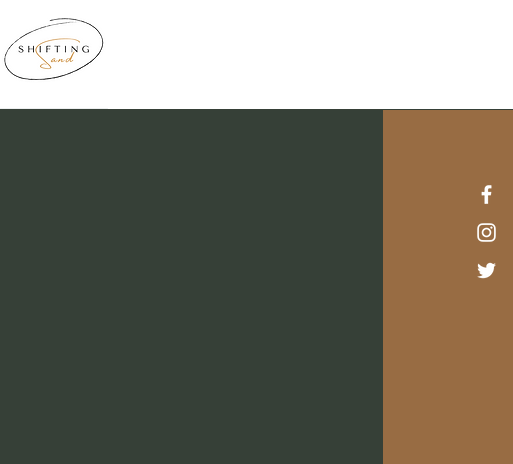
#include <cairo.h>
#include <math.h>
#include <stddef.h>

static cairo_t *c;
static void C(unsigned color){cairo_set_source_rgb(c, (color >> 16) / 255.0, (color >> 8 & 255) / 255.0, (color & 255) / 255.0);}
static void R(double x, double y, double w, double h){cairo_rectangle(c, x, y, w, h);cairo_fill(c);}
static void I(const char *path, double x, double y, double w, double h){cairo_surface_t *image = cairo_image_surface_create_from_png(path);cairo_save(c);cairo_set_source_surface(c, image, x, y);cairo_rectangle(c, x, y, w, h);cairo_fill(c);cairo_restore(c);cairo_surface_destroy(image);}
int main(void) {
cairo_surface_t *surface = cairo_image_surface_create(CAIRO_FORMAT_RGB24, 513, 464);
c = cairo_create(surface);
cairo_font_options_t *options = cairo_font_options_create();
cairo_font_options_set_hint_metrics(options, CAIRO_HINT_METRICS_OFF);
cairo_font_options_set_hint_style(options, CAIRO_HINT_STYLE_NONE);
cairo_set_font_options(c, options);
cairo_set_miter_limit(c, 4);
C(0xffffff);
cairo_paint(c);
I("1.png",0,18,108,91);
C(0x364037);
R(0,109,513,355);
C(0x986c43);
R(383,110,130,354);
I("2.png",481,185,11,19);
I("3.png",477,223,19,19);
I("4.png",477,262,19,17);
cairo_surface_write_to_png(surface, "o.png");
cairo_font_options_destroy(options);
cairo_destroy(c);
cairo_surface_destroy(surface);
return 0;
}
